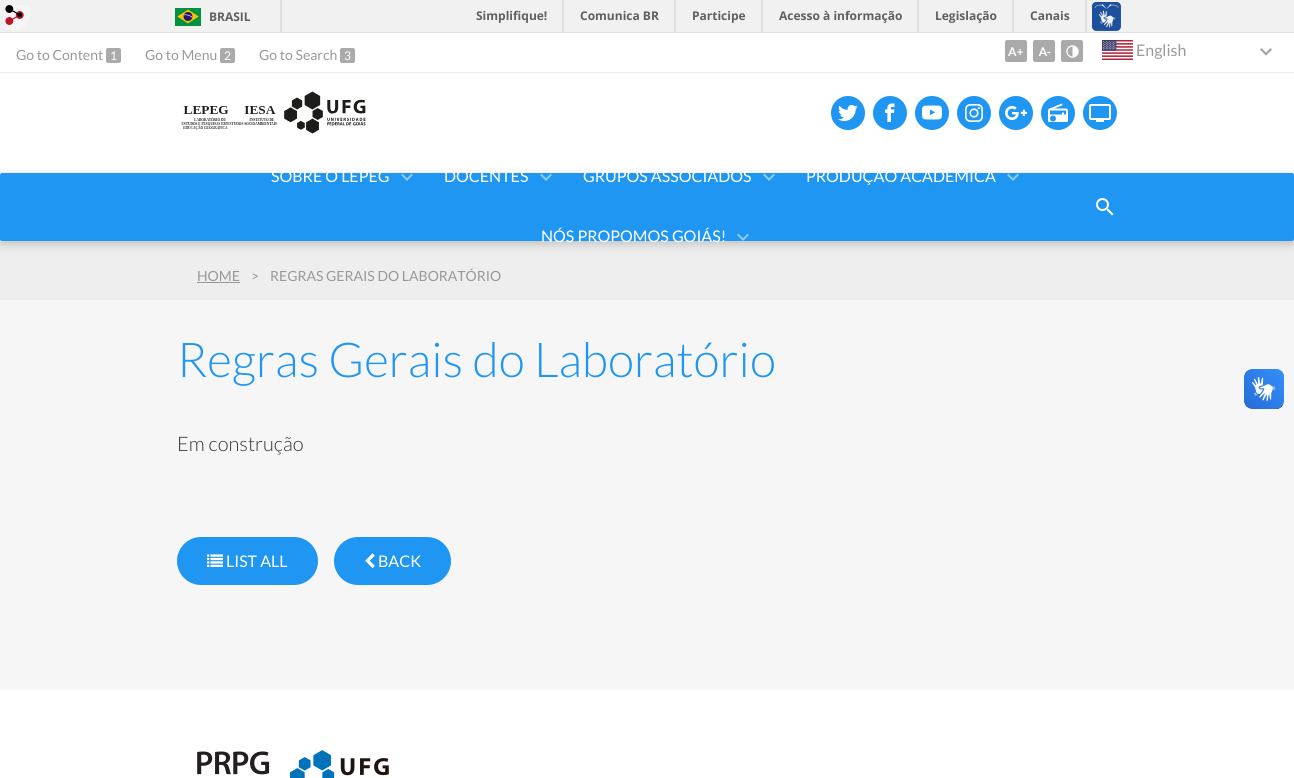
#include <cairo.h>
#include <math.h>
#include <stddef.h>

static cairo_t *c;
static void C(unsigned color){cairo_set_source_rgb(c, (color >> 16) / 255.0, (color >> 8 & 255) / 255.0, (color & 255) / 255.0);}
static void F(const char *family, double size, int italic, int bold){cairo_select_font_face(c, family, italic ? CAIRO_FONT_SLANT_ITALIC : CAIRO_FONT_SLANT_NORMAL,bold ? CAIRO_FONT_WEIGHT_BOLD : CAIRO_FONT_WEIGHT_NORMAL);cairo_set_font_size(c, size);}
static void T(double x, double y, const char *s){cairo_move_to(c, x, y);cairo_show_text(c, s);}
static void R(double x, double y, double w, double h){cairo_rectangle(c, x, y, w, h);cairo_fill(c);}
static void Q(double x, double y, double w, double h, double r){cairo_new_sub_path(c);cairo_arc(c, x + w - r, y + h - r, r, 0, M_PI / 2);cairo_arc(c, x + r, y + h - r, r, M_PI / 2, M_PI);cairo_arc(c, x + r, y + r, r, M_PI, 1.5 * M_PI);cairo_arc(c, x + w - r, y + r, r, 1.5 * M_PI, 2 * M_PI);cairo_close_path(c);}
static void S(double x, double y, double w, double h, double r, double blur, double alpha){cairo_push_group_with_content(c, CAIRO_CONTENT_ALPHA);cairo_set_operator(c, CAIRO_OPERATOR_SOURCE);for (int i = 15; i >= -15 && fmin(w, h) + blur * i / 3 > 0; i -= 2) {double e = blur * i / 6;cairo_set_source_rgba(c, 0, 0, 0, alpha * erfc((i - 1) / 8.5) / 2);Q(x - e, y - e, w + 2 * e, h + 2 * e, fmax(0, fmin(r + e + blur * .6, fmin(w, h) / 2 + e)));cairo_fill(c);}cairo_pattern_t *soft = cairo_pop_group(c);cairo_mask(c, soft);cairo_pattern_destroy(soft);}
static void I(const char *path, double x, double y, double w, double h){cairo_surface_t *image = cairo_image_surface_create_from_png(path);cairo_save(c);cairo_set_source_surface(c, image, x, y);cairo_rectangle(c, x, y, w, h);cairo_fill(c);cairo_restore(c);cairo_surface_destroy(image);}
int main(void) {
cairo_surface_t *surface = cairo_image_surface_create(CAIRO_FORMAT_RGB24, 1294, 778);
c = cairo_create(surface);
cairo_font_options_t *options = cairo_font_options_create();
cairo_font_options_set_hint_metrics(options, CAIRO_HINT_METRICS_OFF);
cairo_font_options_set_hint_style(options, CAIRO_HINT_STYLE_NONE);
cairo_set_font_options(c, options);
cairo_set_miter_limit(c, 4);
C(0xf6f6f6);
cairo_paint(c);
C(0xf1f1f1);
R(0,0,1294,32);
I("1.png",5,5,25,25);
C(0xdfdfdf);
R(0,32,1294,1);
R(280,0,2,32);
I("2.png",175,8,26,18);
F("Open Sans",12,0,1);
C(0x606060);
T(209,21,"BRASIL");
C(0xdfdfdf);
R(562,0,2,32);
C(0x606060);
T(476,20,"Simplifique!");
C(0xdfdfdf);
R(674,0,2,32);
C(0x606060);
T(580,20,"Comunica BR");
C(0xdfdfdf);
R(761,0,2,32);
C(0x606060);
T(692,20,"Participe");
C(0xdfdfdf);
R(917,0,2,32);
C(0x606060);
T(779,20,"Acesso à informação");
C(0xdfdfdf);
R(1012,0,2,32);
C(0x606060);
T(935,20,"Legislação");
C(0xdfdfdf);
R(1085,0,2,32);
C(0x606060);
T(1030,20,"Canais");
I("3.png",1092,2,29,29);
C(0xffffff);
R(0,33,1294,39);
C(0xececec);
R(0,72,1294,1);
F("Lato",14,0,0);
C(0x999999);
T(16,60,"Go to Content");
C(0xaaaaaa);
Q(106,48,15,15,2);
cairo_fill(c);
F("Lato",12,0,0);
C(0xffffff);
T(110,60,"1");
F("Lato",14,0,0);
C(0x999999);
T(145,60,"Go to Menu");
C(0xaaaaaa);
Q(220,48,15,15,2);
cairo_fill(c);
F("Lato",12,0,0);
C(0xffffff);
T(224,60,"2");
F("Lato",14,0,0);
C(0x999999);
T(259,60,"Go to Search");
C(0xaaaaaa);
Q(340,48,15,15,2);
cairo_fill(c);
F("Lato",12,0,0);
C(0xffffff);
T(344,60,"3");
C(0xaaaaaa);
Q(1005,40,22,22,2);
cairo_fill(c);
I("4.png",1008,47,15,9);
Q(1033,40,22,22,2);
cairo_fill(c);
I("5.png",1038,47,13,9);
Q(1061,40,22,22,2);
cairo_fill(c);
I("6.png",1066,45,13,13);
I("7.png",1260,47,12,9);
I("8.png",1102,40,31,20);
F("Lato",16,0,0);
C(0x999999);
T(1136,56,"English");
C(0xffffff);
R(0,73,1294,102);
I("9.png",181,91,185,43);
C(0x2096f3);
cairo_arc(c,848,113,17,0,2 * M_PI);
cairo_fill(c);
I("10.png",838,105,20,16);
cairo_arc(c,890,113,17,0,2 * M_PI);
cairo_fill(c);
I("11.png",885,103,10,19);
cairo_arc(c,932,113,17,0,2 * M_PI);
cairo_fill(c);
I("12.png",922,105,20,15);
cairo_arc(c,974,113,17,0,2 * M_PI);
cairo_fill(c);
I("13.png",965,104,18,18);
cairo_arc(c,1016,113,17,0,2 * M_PI);
cairo_fill(c);
I("14.png",1005,106,22,14);
cairo_arc(c,1058,113,17,0,2 * M_PI);
cairo_fill(c);
I("15.png",1048,103,20,19);
cairo_arc(c,1100,113,17,0,2 * M_PI);
cairo_fill(c);
I("16.png",1089,104,22,18);
C(0xeeeeee);
R(0,239,1294,61);
C(0x000000);
S(0,176,1294,68,2,5,.2);
C(0x2096f3);
Q(0,173,1294,68,2);
cairo_fill(c);
C(0xffffff);
T(271,182,"SOBRE O LEPEG");
I("17.png",401,173,12,8);
T(444,182,"DOCENTES");
I("17.png",540,173,12,8);
T(583,182,"GRUPOS ASSOCIADOS");
I("17.png",763,173,12,8);
T(806,182,"PRODUÇÃO ACADÊMICA");
I("17.png",1007,173,12,8);
T(541,242,"NÓS PROPOMOS GOIÁS!");
I("17.png",737,233,12,8);
I("18.png",1096,198,18,18);
F("Lato",14,0,0);
C(0x999999);
T(197,281,"HOME");
R(197,282,43,1);
T(251,281,">");
T(270,281,"REGRAS GERAIS DO LABORATÓRIO");
F("Lato Light",48,0,0);
C(0x2096f3);
T(177,377,"Regras Gerais do Laboratório");
F("Lato Light",20,0,0);
C(0x333333);
T(177,451,"Em construção");
C(0x2096f3);
Q(177,537,141,48,24);
cairo_fill(c);
I("19.png",207,554,16,13);
F("Lato",16,0,0);
C(0xffffff);
T(226,567,"LIST ALL");
C(0x2096f3);
Q(334,537,117,48,24);
cairo_fill(c);
I("20.png",365,553,10,15);
C(0xffffff);
T(378,567,"BACK");
I("21.png",1244,369,40,40);
I("22.png",1244,369,40,40);
R(0,690,1294,88);
I("23.png",197,751,73,24);
I("24.png",290,750,99,28);
cairo_surface_write_to_png(surface, "o.png");
cairo_font_options_destroy(options);
cairo_destroy(c);
cairo_surface_destroy(surface);
return 0;
}
